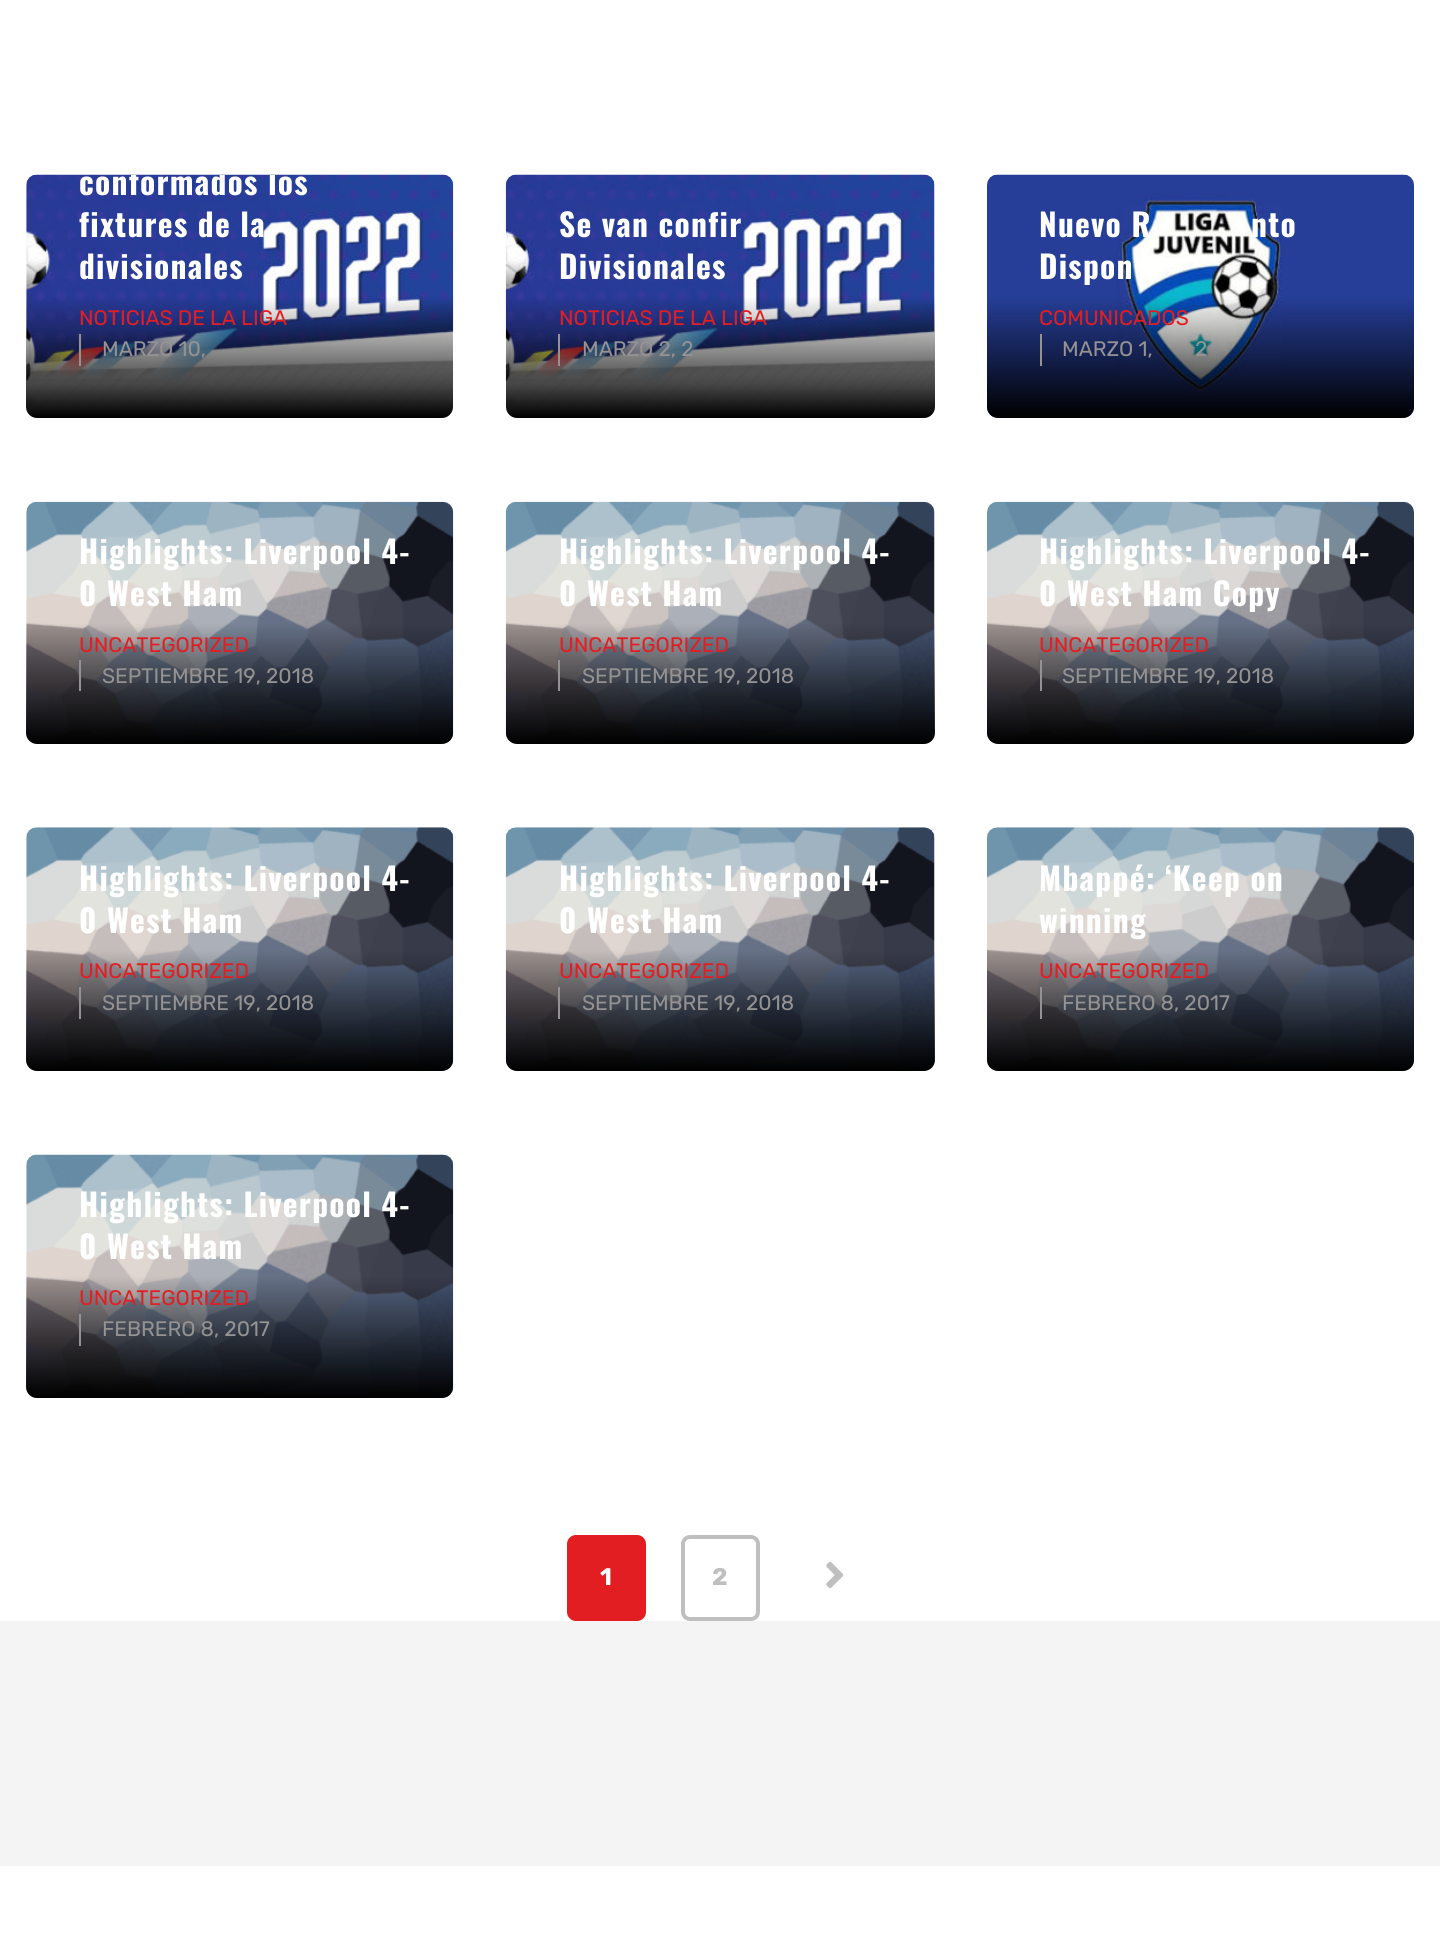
#include <cairo.h>
#include <math.h>
#include <stddef.h>

static cairo_t *c;
static void C(unsigned color){cairo_set_source_rgb(c, (color >> 16) / 255.0, (color >> 8 & 255) / 255.0, (color & 255) / 255.0);}
static void F(const char *family, double size, int italic, int bold){cairo_select_font_face(c, family, italic ? CAIRO_FONT_SLANT_ITALIC : CAIRO_FONT_SLANT_NORMAL,bold ? CAIRO_FONT_WEIGHT_BOLD : CAIRO_FONT_WEIGHT_NORMAL);cairo_set_font_size(c, size);}
static void T(double x, double y, const char *s){cairo_move_to(c, x, y);cairo_show_text(c, s);}
static void L(double x, double y, const char *s, double letter, double word){cairo_move_to(c, x, y);while (*s) {char ch[5] = {0};int n = 0;do ch[n++] = *s++; while ((*s & 0xC0) == 0x80);cairo_show_text(c, ch);cairo_rel_move_to(c, letter + word * (*ch == ' '), 0);}}
static void R(double x, double y, double w, double h){cairo_rectangle(c, x, y, w, h);cairo_fill(c);}
static void Q(double x, double y, double w, double h, double r){cairo_new_sub_path(c);cairo_arc(c, x + w - r, y + h - r, r, 0, M_PI / 2);cairo_arc(c, x + r, y + h - r, r, M_PI / 2, M_PI);cairo_arc(c, x + r, y + r, r, M_PI, 1.5 * M_PI);cairo_arc(c, x + w - r, y + r, r, 1.5 * M_PI, 2 * M_PI);cairo_close_path(c);}
static void I(const char *path, double x, double y, double w, double h){cairo_surface_t *image = cairo_image_surface_create_from_png(path);cairo_save(c);cairo_set_source_surface(c, image, x, y);cairo_rectangle(c, x, y, w, h);cairo_fill(c);cairo_restore(c);cairo_surface_destroy(image);}
int main(void) {
cairo_surface_t *surface = cairo_image_surface_create(CAIRO_FORMAT_RGB24, 1440, 1954);
c = cairo_create(surface);
cairo_font_options_t *options = cairo_font_options_create();
cairo_font_options_set_hint_metrics(options, CAIRO_HINT_METRICS_OFF);
cairo_font_options_set_hint_style(options, CAIRO_HINT_STYLE_NONE);
cairo_set_font_options(c, options);
cairo_set_miter_limit(c, 4);
cairo_pattern_t *gradient;
C(0xffffff);
cairo_paint(c);
I("1.png",26,174,428,244);
cairo_save(c);
Q(26,175,427,243,11);
cairo_clip(c);
F("Oswald",31.5,0,1);
C(0xffffff);
L(79,195,"conformados los",1.25,0);
cairo_restore(c);
F("Oswald",31.5,0,1);
C(0xffffff);
L(79,237,"fixtures de la",1.25,0);
L(79,279,"divisionales",1.25,0);
gradient = cairo_pattern_create_linear(240,418,240,296);
cairo_pattern_add_color_stop_rgba(gradient,0,0,0,0,1);
cairo_pattern_add_color_stop_rgba(gradient,1,0,0,0,0);
cairo_set_source(c,gradient);
cairo_pattern_destroy(gradient);
cairo_new_path(c);
cairo_move_to(c,26,296);
cairo_line_to(c,453,296);
cairo_line_to(c,453,407);
cairo_curve_to(c,453,413,448,418,442,418);
cairo_line_to(c,37,418);
cairo_curve_to(c,31,418,26,413,26,407);
cairo_close_path(c);
cairo_fill(c);
F("Rubik",21,0,0);
C(0xe21e22);
T(79,325,"NOTICIAS DE LA LIGA");
C(0x949292);
R(79,334,2,32);
T(102,356,"MARZO 10,");
I("2.png",505,174,430,244);
F("Oswald",31.5,0,1);
C(0xffffff);
L(559,237,"Se van confir",1.25,0);
L(559,279,"Divisionales",1.25,0);
gradient = cairo_pattern_create_linear(720,418,720,296);
cairo_pattern_add_color_stop_rgba(gradient,0,0,0,0,1);
cairo_pattern_add_color_stop_rgba(gradient,1,0,0,0,0);
cairo_set_source(c,gradient);
cairo_pattern_destroy(gradient);
cairo_new_path(c);
cairo_move_to(c,506,296);
cairo_line_to(c,935,296);
cairo_line_to(c,935,407);
cairo_curve_to(c,935,413,930,418,924,418);
cairo_line_to(c,517,418);
cairo_curve_to(c,511,418,506,413,506,407);
cairo_close_path(c);
cairo_fill(c);
F("Rubik",21,0,0);
C(0xe21e22);
T(559,325,"NOTICIAS DE LA LIGA");
C(0x949292);
R(558,334,2,32);
T(582,356,"MARZO 2, 2");
I("3.png",987,174,427,244);
F("Oswald",31.5,0,1);
C(0xffffff);
L(1039,237,"Nuevo R",1.25,0);
L(1251,237,"nto",1.25,0);
L(1039,279,"Dispon",1.25,0);
gradient = cairo_pattern_create_linear(1201,418,1201,296);
cairo_pattern_add_color_stop_rgba(gradient,0,0,0,0,1);
cairo_pattern_add_color_stop_rgba(gradient,1,0,0,0,0);
cairo_set_source(c,gradient);
cairo_pattern_destroy(gradient);
cairo_new_path(c);
cairo_move_to(c,987,296);
cairo_line_to(c,1414,296);
cairo_line_to(c,1414,407);
cairo_curve_to(c,1414,413,1409,418,1403,418);
cairo_line_to(c,998,418);
cairo_curve_to(c,992,418,987,413,987,407);
cairo_close_path(c);
cairo_fill(c);
F("Rubik",21,0,0);
C(0xe21e22);
T(1039,325,"COMUNICADOS");
C(0x949292);
R(1040,334,2,32);
T(1062,356,"MARZO 1,");
T(1195,356,"2");
I("4.png",26,501,428,243);
F("Oswald",31.5,0,1);
C(0xffffff);
L(79,564,"Highlights: Liverpool 4-",1.25,0);
L(79,606,"0 West Ham",1.25,0);
gradient = cairo_pattern_create_linear(240,744,240,623);
cairo_pattern_add_color_stop_rgba(gradient,0,0,0,0,1);
cairo_pattern_add_color_stop_rgba(gradient,1,0,0,0,0);
cairo_set_source(c,gradient);
cairo_pattern_destroy(gradient);
cairo_new_path(c);
cairo_move_to(c,26,623);
cairo_line_to(c,453,623);
cairo_line_to(c,453,733);
cairo_curve_to(c,453,739,448,744,442,744);
cairo_line_to(c,37,744);
cairo_curve_to(c,31,744,26,739,26,733);
cairo_close_path(c);
cairo_fill(c);
F("Rubik",21,0,0);
C(0xe21e22);
T(79,652,"UNCATEGORIZED");
C(0x949292);
R(79,660,2,31);
T(102,683,"SEPTIEMBRE 19, 2018");
I("5.png",505,501,430,243);
F("Oswald",31.5,0,1);
C(0xffffff);
L(559,564,"Highlights: Liverpool 4-",1.25,0);
L(559,606,"0 West Ham",1.25,0);
gradient = cairo_pattern_create_linear(720,744,720,623);
cairo_pattern_add_color_stop_rgba(gradient,0,0,0,0,1);
cairo_pattern_add_color_stop_rgba(gradient,1,0,0,0,0);
cairo_set_source(c,gradient);
cairo_pattern_destroy(gradient);
cairo_new_path(c);
cairo_move_to(c,506,623);
cairo_line_to(c,935,623);
cairo_line_to(c,935,733);
cairo_curve_to(c,935,739,930,744,924,744);
cairo_line_to(c,517,744);
cairo_curve_to(c,511,744,506,739,506,733);
cairo_close_path(c);
cairo_fill(c);
F("Rubik",21,0,0);
C(0xe21e22);
T(559,652,"UNCATEGORIZED");
C(0x949292);
R(558,660,2,31);
T(582,683,"SEPTIEMBRE 19, 2018");
I("6.png",987,501,427,243);
F("Oswald",31.5,0,1);
C(0xffffff);
L(1039,564,"Highlights: Liverpool 4-",1.25,0);
L(1039,606,"0 West Ham Copy",1.25,0);
gradient = cairo_pattern_create_linear(1201,744,1201,623);
cairo_pattern_add_color_stop_rgba(gradient,0,0,0,0,1);
cairo_pattern_add_color_stop_rgba(gradient,1,0,0,0,0);
cairo_set_source(c,gradient);
cairo_pattern_destroy(gradient);
cairo_new_path(c);
cairo_move_to(c,987,623);
cairo_line_to(c,1414,623);
cairo_line_to(c,1414,733);
cairo_curve_to(c,1414,739,1409,744,1403,744);
cairo_line_to(c,998,744);
cairo_curve_to(c,992,744,987,739,987,733);
cairo_close_path(c);
cairo_fill(c);
F("Rubik",21,0,0);
C(0xe21e22);
T(1039,652,"UNCATEGORIZED");
C(0x949292);
R(1040,660,2,31);
T(1062,683,"SEPTIEMBRE 19, 2018");
I("7.png",26,827,428,244);
F("Oswald",31.5,0,1);
C(0xffffff);
L(79,891,"Highlights: Liverpool 4-",1.25,0);
L(79,933,"0 West Ham",1.25,0);
gradient = cairo_pattern_create_linear(240,1071,240,950);
cairo_pattern_add_color_stop_rgba(gradient,0,0,0,0,1);
cairo_pattern_add_color_stop_rgba(gradient,1,0,0,0,0);
cairo_set_source(c,gradient);
cairo_pattern_destroy(gradient);
cairo_new_path(c);
cairo_move_to(c,26,950);
cairo_line_to(c,453,950);
cairo_line_to(c,453,1060);
cairo_curve_to(c,453,1066,448,1071,442,1071);
cairo_line_to(c,37,1071);
cairo_curve_to(c,31,1071,26,1066,26,1060);
cairo_close_path(c);
cairo_fill(c);
F("Rubik",21,0,0);
C(0xe21e22);
T(79,978,"UNCATEGORIZED");
C(0x949292);
R(79,987,2,32);
T(102,1010,"SEPTIEMBRE 19, 2018");
I("8.png",505,827,430,244);
F("Oswald",31.5,0,1);
C(0xffffff);
L(559,891,"Highlights: Liverpool 4-",1.25,0);
L(559,933,"0 West Ham",1.25,0);
gradient = cairo_pattern_create_linear(720,1071,720,950);
cairo_pattern_add_color_stop_rgba(gradient,0,0,0,0,1);
cairo_pattern_add_color_stop_rgba(gradient,1,0,0,0,0);
cairo_set_source(c,gradient);
cairo_pattern_destroy(gradient);
cairo_new_path(c);
cairo_move_to(c,506,950);
cairo_line_to(c,935,950);
cairo_line_to(c,935,1060);
cairo_curve_to(c,935,1066,930,1071,924,1071);
cairo_line_to(c,517,1071);
cairo_curve_to(c,511,1071,506,1066,506,1060);
cairo_close_path(c);
cairo_fill(c);
F("Rubik",21,0,0);
C(0xe21e22);
T(559,978,"UNCATEGORIZED");
C(0x949292);
R(558,987,2,32);
T(582,1010,"SEPTIEMBRE 19, 2018");
I("9.png",987,827,427,244);
F("Oswald",31.5,0,1);
C(0xffffff);
L(1039,891,"Mbappé: ‘Keep on",1.25,0);
L(1039,933,"winning",1.25,0);
gradient = cairo_pattern_create_linear(1201,1071,1201,950);
cairo_pattern_add_color_stop_rgba(gradient,0,0,0,0,1);
cairo_pattern_add_color_stop_rgba(gradient,1,0,0,0,0);
cairo_set_source(c,gradient);
cairo_pattern_destroy(gradient);
cairo_new_path(c);
cairo_move_to(c,987,950);
cairo_line_to(c,1414,950);
cairo_line_to(c,1414,1060);
cairo_curve_to(c,1414,1066,1409,1071,1403,1071);
cairo_line_to(c,998,1071);
cairo_curve_to(c,992,1071,987,1066,987,1060);
cairo_close_path(c);
cairo_fill(c);
F("Rubik",21,0,0);
C(0xe21e22);
T(1039,978,"UNCATEGORIZED");
C(0x949292);
R(1040,987,2,32);
T(1062,1010,"FEBRERO 8, 2017");
I("10.png",26,1154,428,244);
F("Oswald",31.5,0,1);
C(0xffffff);
L(79,1217,"Highlights: Liverpool 4-",1.25,0);
L(79,1259,"0 West Ham",1.25,0);
gradient = cairo_pattern_create_linear(240,1398,240,1276);
cairo_pattern_add_color_stop_rgba(gradient,0,0,0,0,1);
cairo_pattern_add_color_stop_rgba(gradient,1,0,0,0,0);
cairo_set_source(c,gradient);
cairo_pattern_destroy(gradient);
cairo_new_path(c);
cairo_move_to(c,26,1276);
cairo_line_to(c,453,1276);
cairo_line_to(c,453,1387);
cairo_curve_to(c,453,1393,448,1398,442,1398);
cairo_line_to(c,37,1398);
cairo_curve_to(c,31,1398,26,1393,26,1387);
cairo_close_path(c);
cairo_fill(c);
F("Rubik",21,0,0);
C(0xe21e22);
T(79,1305,"UNCATEGORIZED");
C(0x949292);
R(79,1314,2,32);
T(102,1336,"FEBRERO 8, 2017");
C(0xe21e22);
Q(569,1537,75,82,7);
cairo_fill_preserve(c);
cairo_set_line_width(c,4);
cairo_stroke(c);
F("Rubik",24,0,1);
C(0xffffff);
T(600,1585,"1");
Q(683,1537,75,82,7);
C(0xbfbfbf);
cairo_stroke(c);
T(712,1585,"2");
I("11.png",826,1562,18,26);
C(0xf4f4f4);
R(0,1621,1440,245);
cairo_surface_write_to_png(surface, "o.png");
cairo_font_options_destroy(options);
cairo_destroy(c);
cairo_surface_destroy(surface);
return 0;
}
